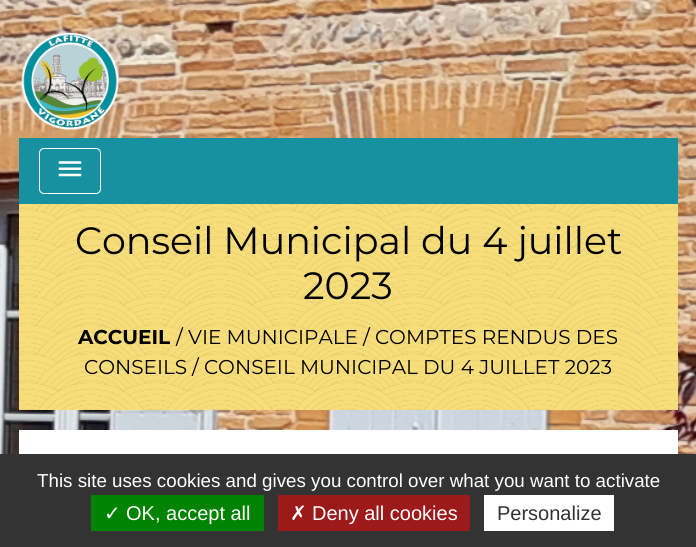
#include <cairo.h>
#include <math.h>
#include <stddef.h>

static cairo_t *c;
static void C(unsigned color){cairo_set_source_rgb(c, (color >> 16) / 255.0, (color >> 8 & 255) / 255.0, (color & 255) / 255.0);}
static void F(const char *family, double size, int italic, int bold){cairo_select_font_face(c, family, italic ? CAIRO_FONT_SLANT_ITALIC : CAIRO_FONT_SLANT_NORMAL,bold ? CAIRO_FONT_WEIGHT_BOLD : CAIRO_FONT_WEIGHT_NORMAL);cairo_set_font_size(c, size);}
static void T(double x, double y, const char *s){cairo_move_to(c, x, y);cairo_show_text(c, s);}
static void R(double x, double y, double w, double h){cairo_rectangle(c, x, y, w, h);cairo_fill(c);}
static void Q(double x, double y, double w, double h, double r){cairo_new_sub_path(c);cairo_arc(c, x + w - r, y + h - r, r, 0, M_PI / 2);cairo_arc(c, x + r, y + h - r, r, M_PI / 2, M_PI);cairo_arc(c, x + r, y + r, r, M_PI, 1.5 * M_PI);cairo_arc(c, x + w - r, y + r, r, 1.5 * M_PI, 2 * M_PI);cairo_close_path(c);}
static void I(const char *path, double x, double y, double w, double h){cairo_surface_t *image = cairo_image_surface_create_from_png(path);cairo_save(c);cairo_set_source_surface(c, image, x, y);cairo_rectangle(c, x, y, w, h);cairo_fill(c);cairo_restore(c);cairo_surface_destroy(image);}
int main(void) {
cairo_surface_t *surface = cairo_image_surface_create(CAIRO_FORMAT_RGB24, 696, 547);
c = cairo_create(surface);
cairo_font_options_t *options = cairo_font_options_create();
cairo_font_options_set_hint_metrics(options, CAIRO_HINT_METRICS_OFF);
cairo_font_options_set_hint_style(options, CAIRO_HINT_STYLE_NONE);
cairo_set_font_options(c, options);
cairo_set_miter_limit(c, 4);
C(0xffffff);
cairo_paint(c);
I("1.png",0,0,696,454);
I("2.png",21,33,98,97);
C(0x1791a0);
R(19,138,659,66);
Q(39.5,148.5,61,45,4.5);
C(0xffffff);
cairo_set_line_width(c,1);
cairo_stroke(c);
I("3.png",58,161,24,16);
C(0xf8de7b);
R(19,204,659,206);
I("4.png",19,204,659,206);
F("Montserrat",38,0,0);
C(0x000000);
T(75,254,"Conseil Municipal du 4 juillet");
T(303,299,"2023");
F("Montserrat",20,0,1);
T(78,344,"ACCUEIL");
F("Montserrat",20,0,0);
T(176,344,"/ VIE MUNICIPALE");
T(363,344,"/ COMPTES RENDUS DES");
T(84,374,"CONSEILS");
T(192,374,"/ CONSEIL MUNICIPAL DU 4 JUILLET 2023");
C(0xffffff);
R(19,430,659,24);
C(0x333333);
R(0,454,696,93);
F("Liberation Sans",18.75,0,0);
C(0xffffff);
T(37,487,"This site uses cookies and gives you control over what you want to activate");
C(0x008300);
R(91,495,173,36);
F("DejaVu Sans",20,0,0);
C(0xffffff);
T(104,520,"✓");
F("Liberation Sans",20,0,0);
T(126,520,"OK, accept all");
C(0x9c1a1a);
R(278,495,192,36);
F("DejaVu Sans",20,0,0);
C(0xffffff);
T(290,520,"✗");
F("Liberation Sans",20,0,0);
T(312,520,"Deny all cookies");
R(484,495,130,36);
C(0x333333);
T(497,520,"Personalize");
cairo_surface_write_to_png(surface, "o.png");
cairo_font_options_destroy(options);
cairo_destroy(c);
cairo_surface_destroy(surface);
return 0;
}
